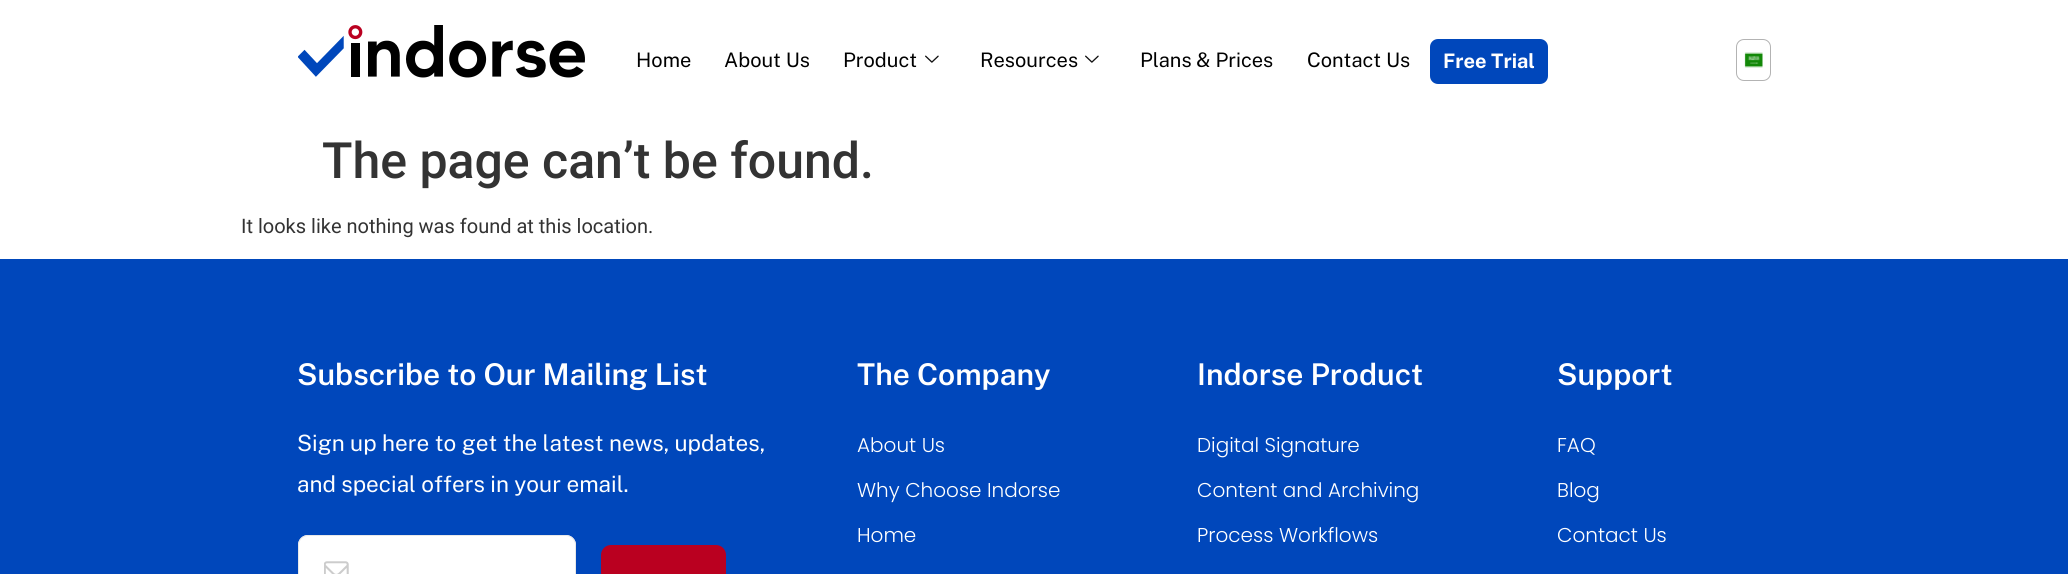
#include <cairo.h>
#include <math.h>
#include <stddef.h>

static cairo_t *c;
static void C(unsigned color){cairo_set_source_rgb(c, (color >> 16) / 255.0, (color >> 8 & 255) / 255.0, (color & 255) / 255.0);}
static void F(const char *family, double size, int italic, int bold){cairo_select_font_face(c, family, italic ? CAIRO_FONT_SLANT_ITALIC : CAIRO_FONT_SLANT_NORMAL,bold ? CAIRO_FONT_WEIGHT_BOLD : CAIRO_FONT_WEIGHT_NORMAL);cairo_set_font_size(c, size);}
static void T(double x, double y, const char *s){cairo_move_to(c, x, y);cairo_show_text(c, s);}
static void R(double x, double y, double w, double h){cairo_rectangle(c, x, y, w, h);cairo_fill(c);}
static void Q(double x, double y, double w, double h, double r){cairo_new_sub_path(c);cairo_arc(c, x + w - r, y + h - r, r, 0, M_PI / 2);cairo_arc(c, x + r, y + h - r, r, M_PI / 2, M_PI);cairo_arc(c, x + r, y + r, r, M_PI, 1.5 * M_PI);cairo_arc(c, x + w - r, y + r, r, 1.5 * M_PI, 2 * M_PI);cairo_close_path(c);}
static void I(const char *path, double x, double y, double w, double h){cairo_surface_t *image = cairo_image_surface_create_from_png(path);cairo_save(c);cairo_set_source_surface(c, image, x, y);cairo_rectangle(c, x, y, w, h);cairo_fill(c);cairo_restore(c);cairo_surface_destroy(image);}
int main(void) {
cairo_surface_t *surface = cairo_image_surface_create(CAIRO_FORMAT_RGB24, 2068, 574);
c = cairo_create(surface);
cairo_font_options_t *options = cairo_font_options_create();
cairo_font_options_set_hint_metrics(options, CAIRO_HINT_METRICS_OFF);
cairo_font_options_set_hint_style(options, CAIRO_HINT_STYLE_NONE);
cairo_set_font_options(c, options);
cairo_set_miter_limit(c, 4);
C(0xffffff);
cairo_paint(c);
I("1.png",298,25,287,53);
F("Public Sans",20,0,0);
C(0x000000);
T(636,67,"Home");
T(724,67,"About Us");
T(843,67,"Product");
I("2.png",925,55,14,8);
T(980,67,"Resources");
I("2.png",1085,55,14,8);
T(1140,67,"Plans & Prices");
T(1307,67,"Contact Us");
C(0x0047bb);
Q(1430,39,118,45,8);
cairo_fill(c);
F("Public Sans",20,0,1);
C(0xffffff);
T(1443,68,"Free Trial");
Q(1736.5,39.5,34,41,7.5);
C(0xb3b3b3);
cairo_set_line_width(c,1);
cairo_stroke(c);
I("3.png",1744,52,19,16);
F("Roboto Medium",50,0,0);
C(0x333333);
T(322,178,"The page can’t be found.");
F("Roboto",20,0,0);
T(241,233,"It looks like nothing was found at this location.");
C(0x0047bb);
R(0,259,2068,315);
F("Public Sans SemiBold",30,0,0);
C(0xffffff);
T(297,385,"Subscribe to Our Mailing List");
F("Public Sans",22.5,0,0);
T(297,451,"Sign up here to get the latest news, updates,");
T(297,492,"and special offers in your email.");
Q(298,535,278,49,10);
cairo_fill(c);
I("4.png",324,561,25,13);
Q(298.5,535.5,277,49,9.5);
C(0xe8e8e8);
cairo_stroke(c);
C(0xba0020);
Q(601,545,125,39,10);
cairo_fill(c);
F("Public Sans SemiBold",30,0,0);
C(0xffffff);
T(857,385,"The Company");
F("Poppins Light",20,0,0);
T(857,452,"About Us");
T(857,497,"Why Choose Indorse");
T(857,542,"Home");
F("Public Sans SemiBold",30,0,0);
T(1197,385,"Indorse Product");
F("Poppins Light",20,0,0);
T(1197,452,"Digital Signature");
T(1197,497,"Content and Archiving");
T(1197,542,"Process Workflows");
F("Public Sans SemiBold",30,0,0);
T(1557,385,"Support");
F("Poppins Light",20,0,0);
T(1557,452,"FAQ");
T(1557,497,"Blog");
T(1557,542,"Contact Us");
cairo_surface_write_to_png(surface, "o.png");
cairo_font_options_destroy(options);
cairo_destroy(c);
cairo_surface_destroy(surface);
return 0;
}
